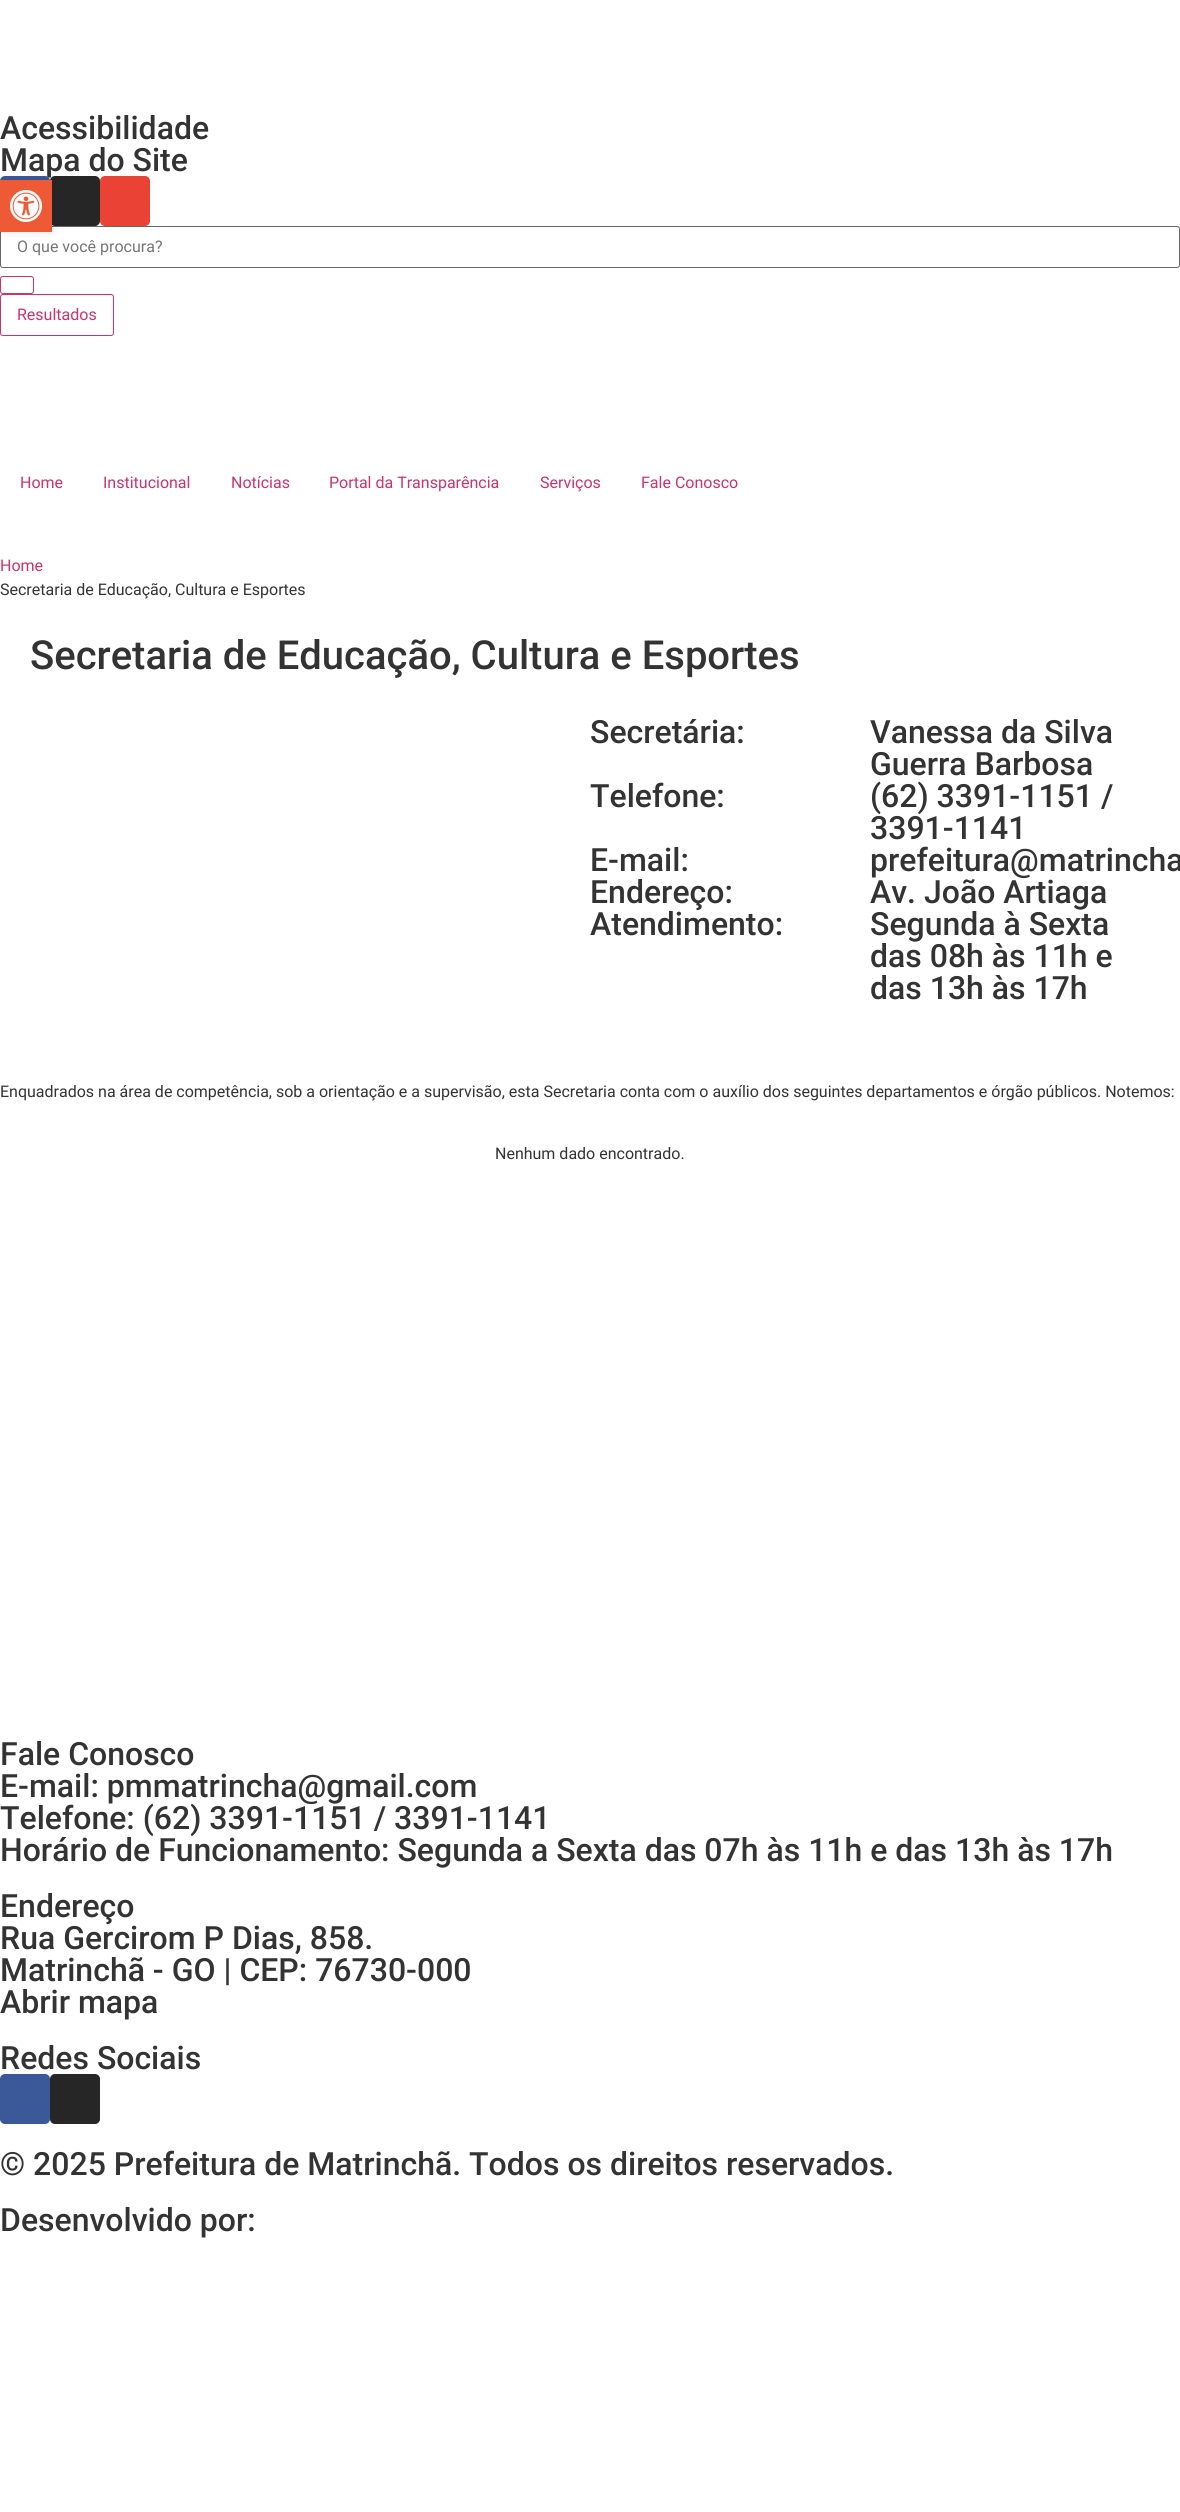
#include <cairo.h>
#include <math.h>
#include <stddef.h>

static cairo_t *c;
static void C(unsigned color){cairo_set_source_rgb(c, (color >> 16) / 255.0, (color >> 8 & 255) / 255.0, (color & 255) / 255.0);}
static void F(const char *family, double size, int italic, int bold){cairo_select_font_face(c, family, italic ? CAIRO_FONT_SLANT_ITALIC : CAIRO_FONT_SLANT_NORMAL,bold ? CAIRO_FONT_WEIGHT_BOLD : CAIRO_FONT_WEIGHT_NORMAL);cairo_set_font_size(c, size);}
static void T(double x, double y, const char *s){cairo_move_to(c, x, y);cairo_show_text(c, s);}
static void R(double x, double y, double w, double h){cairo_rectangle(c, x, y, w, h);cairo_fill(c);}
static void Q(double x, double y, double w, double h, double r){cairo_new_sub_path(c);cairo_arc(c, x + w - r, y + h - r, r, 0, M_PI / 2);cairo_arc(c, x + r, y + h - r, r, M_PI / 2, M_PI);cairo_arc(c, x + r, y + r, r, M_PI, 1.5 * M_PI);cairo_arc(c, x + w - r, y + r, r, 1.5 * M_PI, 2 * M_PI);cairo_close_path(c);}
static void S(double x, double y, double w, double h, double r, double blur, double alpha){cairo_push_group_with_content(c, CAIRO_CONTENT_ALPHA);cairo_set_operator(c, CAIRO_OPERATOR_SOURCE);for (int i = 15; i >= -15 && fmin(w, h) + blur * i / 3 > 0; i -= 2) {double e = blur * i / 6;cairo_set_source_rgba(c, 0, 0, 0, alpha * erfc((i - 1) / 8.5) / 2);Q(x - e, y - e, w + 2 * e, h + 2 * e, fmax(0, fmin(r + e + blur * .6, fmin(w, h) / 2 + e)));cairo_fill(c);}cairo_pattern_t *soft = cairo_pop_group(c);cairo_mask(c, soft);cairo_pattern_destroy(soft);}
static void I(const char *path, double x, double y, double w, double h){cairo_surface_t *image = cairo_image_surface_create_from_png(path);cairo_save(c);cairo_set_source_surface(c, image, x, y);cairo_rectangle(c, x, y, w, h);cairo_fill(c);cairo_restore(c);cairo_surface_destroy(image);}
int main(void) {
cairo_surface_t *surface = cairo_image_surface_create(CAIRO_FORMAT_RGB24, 1180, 2512);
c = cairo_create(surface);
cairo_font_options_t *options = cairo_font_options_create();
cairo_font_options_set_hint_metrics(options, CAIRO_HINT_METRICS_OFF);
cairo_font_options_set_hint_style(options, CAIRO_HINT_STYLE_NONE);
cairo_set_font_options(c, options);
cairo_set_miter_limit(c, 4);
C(0xffffff);
cairo_paint(c);
F("Roboto Medium",32,0,0);
C(0x333333);
T(0,139,"Acessibilidade");
T(0,171,"Mapa do Site");
C(0x3b5998);
Q(0,176,50,50,5);
cairo_fill(c);
C(0x262626);
Q(50,176,50,50,5);
cairo_fill(c);
C(0xea4335);
Q(100,176,50,50,5);
cairo_fill(c);
Q(.5,226.5,1179,41,2.5);
C(0x666666);
cairo_set_line_width(c,1);
cairo_stroke(c);
F("Roboto",16,0,0);
C(0x757575);
T(17,252,"O que você procura?");
Q(.5,276.5,33,17,2.5);
C(0xcc3366);
cairo_stroke(c);
Q(.5,294.5,113,41,2.5);
cairo_stroke(c);
T(17,320,"Resultados");
T(20,488,"Home");
T(103,488,"Institucional");
T(231,488,"Notícias");
T(329,488,"Portal da Transparência");
T(540,488,"Serviços");
T(641,488,"Fale Conosco");
C(0x000000);
S(0,180,52,52,0,5,.1);
C(0xee5a35);
R(0,180,52,52);
I("1.png",10,190,32,32);
C(0xcc3366);
T(0,571,"Home");
C(0x333333);
T(0,595,"Secretaria de Educação, Cultura e Esportes");
F("Roboto Medium",40,0,0);
T(30,669,"Secretaria de Educação, Cultura e Esportes");
F("Roboto Medium",32,0,0);
T(590,743,"Secretária:");
T(870,743,"Vanessa da Silva");
T(870,775,"Guerra Barbosa");
T(590,807,"Telefone:");
T(870,807,"(62) 3391-1151 /");
T(870,839,"3391-1141");
T(590,871,"E-mail:");
T(870,871,"prefeitura@matrincha");
T(590,903,"Endereço:");
T(870,903,"Av. João Artiaga");
T(590,935,"Atendimento:");
T(870,935,"Segunda à Sexta");
T(870,967,"das 08h às 11h e");
T(870,999,"das 13h às 17h");
F("Roboto",16,0,0);
T(0,1097,"Enquadrados na área de competência, sob a orientação e a supervisão, esta Secretaria conta com o auxílio dos seguintes departamentos e órgão públicos. Notemos:");
T(495,1159,"Nenhum dado encontrado.");
F("Roboto Medium",32,0,0);
T(0,1765,"Fale Conosco");
T(0,1797,"E-mail: pmmatrincha@gmail.com");
T(0,1829,"Telefone: (62) 3391-1151 / 3391-1141");
T(0,1861,"Horário de Funcionamento: Segunda a Sexta das 07h às 11h e das 13h às 17h");
T(0,1917,"Endereço");
T(0,1949,"Rua Gercirom P Dias, 858.");
T(0,1981,"Matrinchã - GO | CEP: 76730-000");
T(0,2013,"Abrir mapa");
T(0,2069,"Redes Sociais");
C(0x3b5998);
Q(0,2074,50,50,5);
cairo_fill(c);
C(0x262626);
Q(50,2074,50,50,5);
cairo_fill(c);
C(0x333333);
T(0,2175,"© 2025 Prefeitura de Matrinchã. Todos os direitos reservados.");
T(0,2231,"Desenvolvido por:");
cairo_surface_write_to_png(surface, "o.png");
cairo_font_options_destroy(options);
cairo_destroy(c);
cairo_surface_destroy(surface);
return 0;
}
